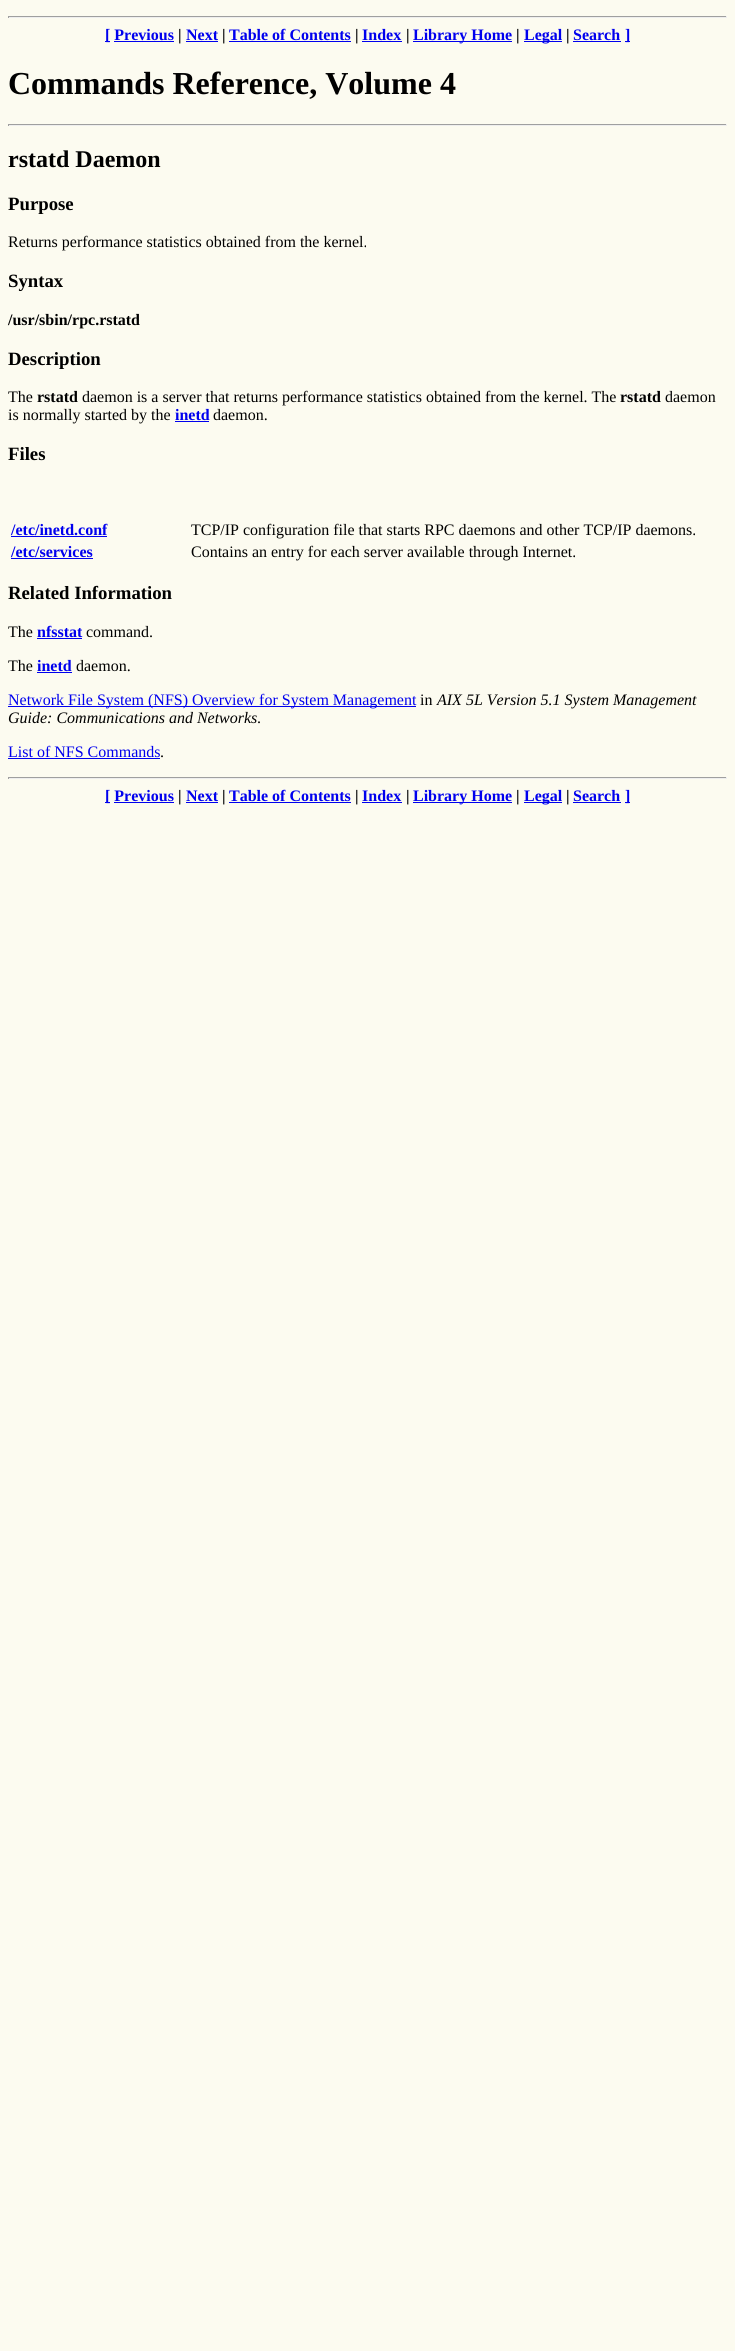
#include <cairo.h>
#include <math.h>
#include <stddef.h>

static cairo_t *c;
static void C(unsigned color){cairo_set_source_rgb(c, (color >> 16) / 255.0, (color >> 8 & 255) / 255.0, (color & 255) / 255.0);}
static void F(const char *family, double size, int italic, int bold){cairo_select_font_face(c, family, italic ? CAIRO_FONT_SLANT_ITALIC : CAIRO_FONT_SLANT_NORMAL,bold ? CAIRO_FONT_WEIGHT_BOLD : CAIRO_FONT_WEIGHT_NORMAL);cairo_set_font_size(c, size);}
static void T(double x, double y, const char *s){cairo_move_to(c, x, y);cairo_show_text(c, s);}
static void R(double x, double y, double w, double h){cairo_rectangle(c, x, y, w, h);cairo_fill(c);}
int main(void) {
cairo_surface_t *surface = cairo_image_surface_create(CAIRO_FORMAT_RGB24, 735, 2351);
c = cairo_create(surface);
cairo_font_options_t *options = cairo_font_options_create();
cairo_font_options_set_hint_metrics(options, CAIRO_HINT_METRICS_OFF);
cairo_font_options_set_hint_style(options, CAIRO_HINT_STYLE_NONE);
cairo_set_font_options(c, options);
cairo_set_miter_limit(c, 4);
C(0xfcfbf0);
cairo_paint(c);
C(0x9f9f9f);
R(8,16,719,1);
C(0xeeeeee);
R(726,16,1,2);
R(8,17,719,1);
C(0x9f9f9f);
R(8,16,1,2);
C(0x0000ee);
R(105,41,5,1);
F("Liberation Serif",16,0,1);
T(105,40,"[ Previous");
C(0x000000);
T(178,40,"|");
C(0x0000ee);
T(186,40,"Next");
R(186,41,32,1);
C(0x000000);
T(222,40,"|");
C(0x0000ee);
T(229,40,"Table of Contents");
R(229,41,122,1);
C(0x000000);
T(355,40,"|");
C(0x0000ee);
T(362,40,"Index");
R(362,41,40,1);
C(0x000000);
T(406,40,"|");
C(0x0000ee);
R(413,41,99,1);
T(413,40,"Library Home");
C(0x000000);
T(516,40,"|");
C(0x0000ee);
R(524,41,38,1);
T(524,40,"Legal");
C(0x000000);
T(566,40,"|");
C(0x0000ee);
T(573,40,"Search");
R(573,41,48,1);
R(625,41,5,1);
T(625,40,"]");
R(114,41,60,1);
F("Liberation Serif",32,0,1);
C(0x000000);
T(8,94,"Commands Reference, Volume 4");
C(0x9f9f9f);
R(8,124,719,1);
C(0xeeeeee);
R(726,124,1,2);
R(8,125,719,1);
C(0x9f9f9f);
R(8,124,1,2);
F("Liberation Serif",24,0,1);
C(0x000000);
T(8,167,"rstatd Daemon");
F("Liberation Serif",18.75,0,1);
T(8,210,"Purpose");
F("Liberation Serif",16,0,0);
T(8,247,"Returns performance statistics obtained from the kernel.");
F("Liberation Serif",18.75,0,1);
T(8,287,"Syntax");
F("Liberation Serif",16,0,1);
T(8,325,"/usr/sbin/rpc.rstatd");
F("Liberation Serif",18.75,0,1);
T(8,365,"Description");
F("Liberation Serif",16,0,0);
T(8,402,"The");
F("Liberation Serif",16,0,1);
T(37,402,"rstatd");
F("Liberation Serif",16,0,0);
T(82,402,"daemon is a server that returns performance statistics obtained from the kernel. The");
F("Liberation Serif",16,0,1);
T(620,402,"rstatd");
F("Liberation Serif",16,0,0);
T(665,402,"daemon");
T(8,420,"is normally started by the");
F("Liberation Serif",16,0,1);
C(0x0000ee);
T(175,420,"inetd");
R(175,421,34,1);
F("Liberation Serif",16,0,0);
C(0x000000);
T(213,420,"daemon.");
F("Liberation Serif",18.75,0,1);
T(8,460,"Files");
F("Liberation Serif",16,0,1);
C(0x0000ee);
T(11,535,"/etc/inetd.conf");
R(11,536,96,1);
F("Liberation Serif",16,0,0);
C(0x000000);
T(191,535,"TCP/IP configuration file that starts RPC daemons and other TCP/IP daemons.");
F("Liberation Serif",16,0,1);
C(0x0000ee);
T(11,557,"/etc/services");
R(11,558,82,1);
F("Liberation Serif",16,0,0);
C(0x000000);
T(191,557,"Contains an entry for each server available through Internet.");
F("Liberation Serif",18.75,0,1);
T(8,599,"Related Information");
F("Liberation Serif",16,0,0);
T(8,637,"The");
F("Liberation Serif",16,0,1);
C(0x0000ee);
T(37,637,"nfsstat");
R(37,638,45,1);
F("Liberation Serif",16,0,0);
C(0x000000);
T(86,637,"command.");
T(8,671,"The");
F("Liberation Serif",16,0,1);
C(0x0000ee);
T(37,671,"inetd");
R(37,672,35,1);
F("Liberation Serif",16,0,0);
C(0x000000);
T(76,671,"daemon.");
C(0x0000ee);
R(8,706,408,1);
T(8,705,"Network File System (NFS) Overview for System Management");
C(0x000000);
T(420,705,"in");
F("Liberation Serif",16,1,0);
T(437,705,"AIX 5L Version 5.1 System Management");
T(8,723,"Guide: Communications and Networks");
F("Liberation Serif",16,0,0);
T(257,723,".");
C(0x0000ee);
T(8,757,"List of NFS Commands");
R(8,758,152,1);
C(0x000000);
T(160,757,".");
C(0x9f9f9f);
R(8,777,719,1);
C(0xeeeeee);
R(726,777,1,2);
R(8,778,719,1);
C(0x9f9f9f);
R(8,777,1,2);
C(0x0000ee);
R(105,802,5,1);
F("Liberation Serif",16,0,1);
T(105,801,"[ Previous");
R(114,802,60,1);
C(0x000000);
T(178,801,"|");
C(0x0000ee);
T(186,801,"Next");
R(186,802,32,1);
C(0x000000);
T(222,801,"|");
C(0x0000ee);
T(229,801,"Table of Contents");
R(229,802,122,1);
C(0x000000);
T(355,801,"|");
C(0x0000ee);
T(362,801,"Index");
R(362,802,40,1);
C(0x000000);
T(406,801,"|");
C(0x0000ee);
R(413,802,99,1);
T(413,801,"Library Home");
C(0x000000);
T(516,801,"|");
C(0x0000ee);
R(524,802,38,1);
T(524,801,"Legal");
C(0x000000);
T(566,801,"|");
C(0x0000ee);
T(573,801,"Search");
R(573,802,48,1);
R(625,802,5,1);
T(625,801,"]");
cairo_surface_write_to_png(surface, "o.png");
cairo_font_options_destroy(options);
cairo_destroy(c);
cairo_surface_destroy(surface);
return 0;
}
